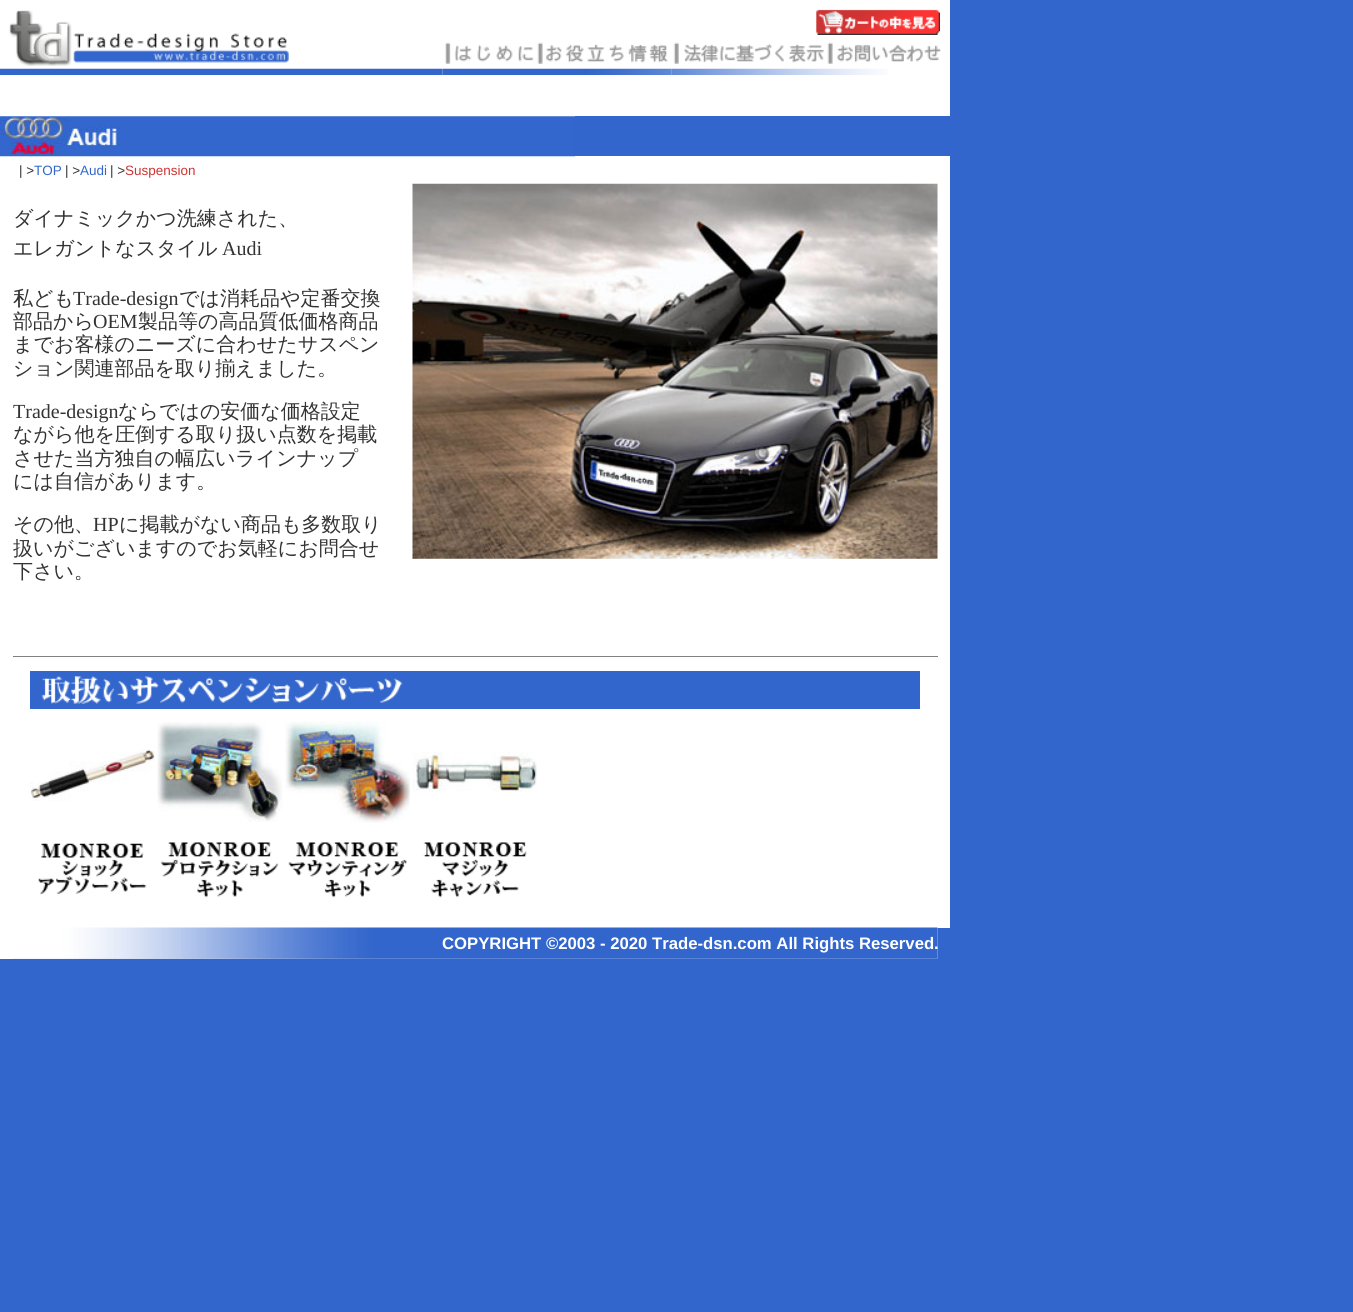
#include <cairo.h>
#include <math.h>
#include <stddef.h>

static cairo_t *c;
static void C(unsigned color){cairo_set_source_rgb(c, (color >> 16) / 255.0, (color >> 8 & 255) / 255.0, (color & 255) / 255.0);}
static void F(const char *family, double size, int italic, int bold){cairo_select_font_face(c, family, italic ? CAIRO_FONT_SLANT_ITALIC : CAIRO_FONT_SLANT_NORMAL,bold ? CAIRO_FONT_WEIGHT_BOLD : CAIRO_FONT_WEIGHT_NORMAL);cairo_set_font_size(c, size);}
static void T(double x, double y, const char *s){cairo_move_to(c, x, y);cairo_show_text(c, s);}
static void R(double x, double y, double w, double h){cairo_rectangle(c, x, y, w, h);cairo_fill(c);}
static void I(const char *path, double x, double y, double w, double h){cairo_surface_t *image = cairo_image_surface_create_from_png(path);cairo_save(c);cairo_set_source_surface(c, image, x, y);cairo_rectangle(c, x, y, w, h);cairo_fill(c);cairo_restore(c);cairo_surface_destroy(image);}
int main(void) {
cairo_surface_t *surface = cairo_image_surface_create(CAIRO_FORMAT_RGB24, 1353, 1312);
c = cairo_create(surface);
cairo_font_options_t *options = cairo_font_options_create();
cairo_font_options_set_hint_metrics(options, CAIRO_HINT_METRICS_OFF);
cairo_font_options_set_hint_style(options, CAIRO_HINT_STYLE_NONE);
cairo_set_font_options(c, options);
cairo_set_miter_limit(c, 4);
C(0x3366cc);
cairo_paint(c);
C(0xffffff);
R(0,0,950,959);
I("1.png",0,10,443,57);
I("2.png",816,9,124,26);
I("3.png",442,42,92,25);
I("4.png",537,42,131,22);
I("5.png",673,42,151,22);
I("6.png",827,42,114,22);
I("7.png",0,66,443,9);
I("8.png",442,66,93,9);
I("9.png",535,68,137,7);
I("10.png",671,68,154,7);
I("11.png",825,68,63,7);
I("12.png",0,116,575,41);
C(0x3366cc);
R(575,116,375,40);
F("Liberation Sans",13.5,0,0);
C(0x333333);
T(19,175,"| >");
C(0x3366cc);
T(34,175,"TOP");
C(0x333333);
T(65,175,"| >");
C(0x3366cc);
T(80,175,"Audi");
C(0x333333);
T(110,175,"| >");
C(0xcc3333);
T(125,175,"Suspension");
F("WenQuanYi Zen Hei Medium",20,0,0);
C(0x333333);
T(13,225,"ダイナミックかつ洗練された、");
T(13,255,"エレガントなスタイル");
F("Liberation Serif",20,0,0);
T(222,255,"Audi");
F("WenQuanYi Zen Hei Medium",20,0,0);
T(13,305,"私ども");
F("Liberation Serif",20,0,0);
T(73,305,"Trade-design");
F("WenQuanYi Zen Hei Medium",20,0,0);
T(179,305,"では消耗品や定番交換");
T(13,328,"部品から");
F("Liberation Serif",20,0,0);
T(93,328,"OEM");
F("WenQuanYi Zen Hei Medium",20,0,0);
T(138,328,"製品等の高品質低価格商品");
T(13,351,"までお客様のニーズに合わせたサスペン");
T(13,375,"ション関連部品を取り揃えました。");
F("Liberation Serif",20,0,0);
T(13,418,"Trade-design");
F("WenQuanYi Zen Hei Medium",20,0,0);
T(118,418,"ならではの安価な価格設定");
T(13,441,"ながら他を圧倒する取り扱い点数を掲載");
T(13,465,"させた当方独自の幅広いラインナップ");
T(13,488,"には自信があります。");
T(13,531,"その他、");
F("Liberation Serif",20,0,0);
T(93,531,"HP");
F("WenQuanYi Zen Hei Medium",20,0,0);
T(119,531,"に掲載がない商品も多数取り");
T(13,555,"扱いがございますのでお気軽にお問合せ");
T(13,578,"下さい。");
I("13.png",412,183,526,376);
C(0x808080);
R(13,656,925,1);
C(0x3366cc);
R(30,671,890,38);
I("14.png",41,676,362,28);
I("15.png",30,749,125,52);
I("16.png",157,722,126,100);
I("17.png",285,721,125,102);
I("18.png",412,751,126,41);
I("19.png",38,843,109,52);
I("20.png",161,842,118,56);
I("21.png",288,842,119,56);
I("22.png",423,842,104,56);
R(13,928,937,31);
I("23.png",13,927,925,32);
F("Liberation Sans",16.7,0,1);
C(0xffffff);
T(442,949,"COPYRIGHT ©2003 - 2020 Trade-dsn.com All Rights Reserved.");
cairo_surface_write_to_png(surface, "o.png");
cairo_font_options_destroy(options);
cairo_destroy(c);
cairo_surface_destroy(surface);
return 0;
}
